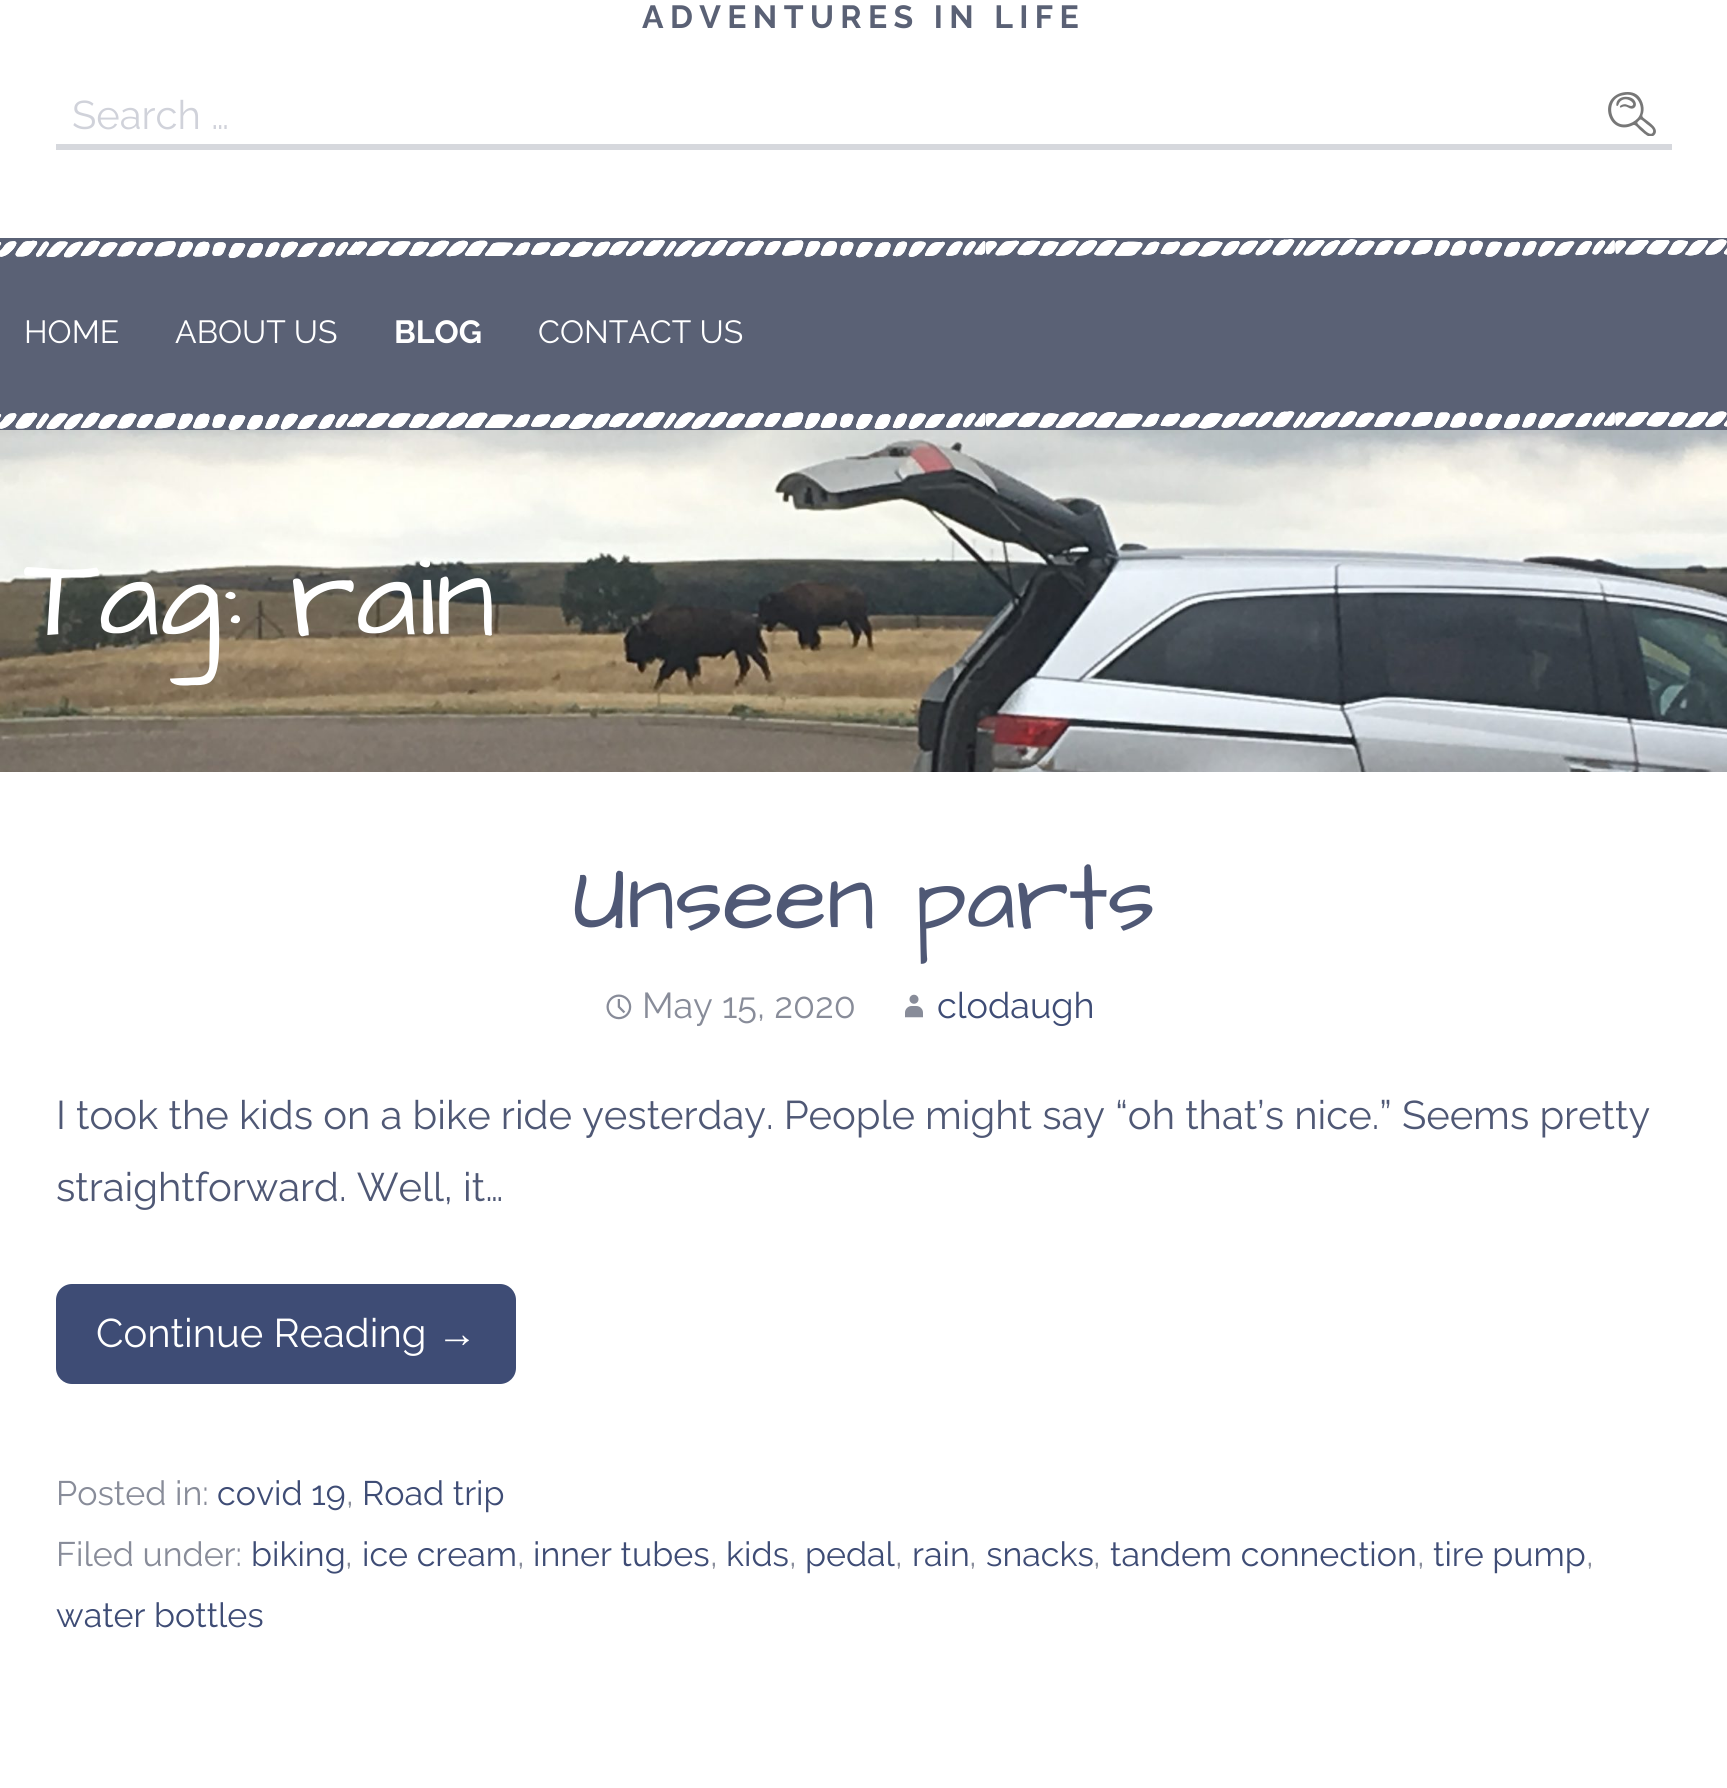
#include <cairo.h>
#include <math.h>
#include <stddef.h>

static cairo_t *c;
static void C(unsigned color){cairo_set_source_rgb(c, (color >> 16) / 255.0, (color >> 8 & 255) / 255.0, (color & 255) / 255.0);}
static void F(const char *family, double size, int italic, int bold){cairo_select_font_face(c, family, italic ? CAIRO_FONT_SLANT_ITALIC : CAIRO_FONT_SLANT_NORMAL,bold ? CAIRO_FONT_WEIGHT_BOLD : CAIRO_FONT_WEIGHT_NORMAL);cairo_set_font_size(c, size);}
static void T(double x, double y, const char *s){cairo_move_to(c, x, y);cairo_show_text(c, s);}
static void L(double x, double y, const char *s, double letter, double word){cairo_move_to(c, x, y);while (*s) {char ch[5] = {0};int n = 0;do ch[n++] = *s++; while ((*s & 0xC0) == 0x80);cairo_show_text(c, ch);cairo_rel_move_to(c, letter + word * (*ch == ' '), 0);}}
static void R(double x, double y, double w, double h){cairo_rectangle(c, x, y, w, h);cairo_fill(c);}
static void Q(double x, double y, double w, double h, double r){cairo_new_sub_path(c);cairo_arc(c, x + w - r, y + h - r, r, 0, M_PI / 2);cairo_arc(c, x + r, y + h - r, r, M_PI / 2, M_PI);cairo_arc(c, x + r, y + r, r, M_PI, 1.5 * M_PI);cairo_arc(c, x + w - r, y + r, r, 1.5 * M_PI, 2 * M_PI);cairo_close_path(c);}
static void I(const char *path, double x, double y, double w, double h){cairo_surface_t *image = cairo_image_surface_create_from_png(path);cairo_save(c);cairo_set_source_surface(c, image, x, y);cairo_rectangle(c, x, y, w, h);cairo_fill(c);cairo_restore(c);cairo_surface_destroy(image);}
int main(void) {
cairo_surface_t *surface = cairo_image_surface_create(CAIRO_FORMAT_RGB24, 1727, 1788);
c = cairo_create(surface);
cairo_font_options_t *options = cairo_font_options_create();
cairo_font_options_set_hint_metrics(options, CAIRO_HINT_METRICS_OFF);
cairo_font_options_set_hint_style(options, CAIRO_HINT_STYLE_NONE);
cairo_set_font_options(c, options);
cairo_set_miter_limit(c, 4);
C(0xffffff);
cairo_paint(c);
F("Raleway",32,0,1);
C(0x5a6175);
L(642,28,"ADVENTURES IN LIFE",6.4,0);
C(0xd6d8dd);
R(56,144,1616,6);
F("Raleway",40,0,0);
C(0xd0d2da);
T(72,129,"Search …");
I("1.png",1608,92,48,44);
C(0x5a6175);
R(0,238,1727,192);
I("2.png",0,239,1727,19);
F("Raleway",32,0,0);
C(0xffffff);
T(24,343,"HOME");
T(175,343,"ABOUT US");
F("Raleway",32,0,1);
T(394,343,"BLOG");
F("Raleway",32,0,0);
T(538,343,"CONTACT US");
I("2.png",0,411,1727,19);
I("3.png",0,430,1727,342);
F("Architects Daughter",120,0,0);
T(24,635,"Tag: rain");
F("Architects Daughter",96,0,0);
C(0x4f5875);
T(573,928,"Unseen parts");
I("4.png",606,994,26,26);
F("Raleway",36,0,0);
C(0x888c99);
T(642,1018,"May 15, 2020");
I("5.png",905,994,18,24);
C(0x3e4c75);
T(937,1018,"clodaugh");
F("Raleway",40,0,0);
C(0x4f5875);
T(56,1129,"I took the kids on a bike ride yesterday. People might say “oh that’s nice.” Seems pretty");
T(56,1201,"straightforward. Well, it…");
C(0x3e4c75);
Q(56,1284,460,100,16);
cairo_fill(c);
C(0xffffff);
T(96,1347,"Continue Reading");
F("Liberation Sans",40,0,0);
T(437,1347,"→");
F("Raleway",34,0,0);
C(0x888c99);
T(56,1505,"Posted in:");
C(0x3e4c75);
T(217,1505,"covid 19");
C(0x888c99);
T(346,1505,",");
C(0x3e4c75);
T(362,1505,"Road trip");
C(0x888c99);
T(56,1566,"Filed under:");
C(0x3e4c75);
T(251,1566,"biking");
C(0x888c99);
T(345,1566,",");
C(0x3e4c75);
T(362,1566,"ice cream");
C(0x888c99);
T(517,1566,",");
C(0x3e4c75);
T(533,1566,"inner tubes");
C(0x888c99);
T(710,1566,",");
C(0x3e4c75);
T(726,1566,"kids");
C(0x888c99);
T(789,1566,",");
C(0x3e4c75);
T(805,1566,"pedal");
C(0x888c99);
T(895,1566,",");
C(0x3e4c75);
T(912,1566,"rain");
C(0x888c99);
T(969,1566,",");
C(0x3e4c75);
T(986,1566,"snacks");
C(0x888c99);
T(1093,1566,",");
C(0x3e4c75);
T(1110,1566,"tandem connection");
C(0x888c99);
T(1417,1566,",");
C(0x3e4c75);
T(1433,1566,"tire pump");
C(0x888c99);
T(1586,1566,",");
C(0x3e4c75);
T(56,1627,"water bottles");
cairo_surface_write_to_png(surface, "o.png");
cairo_font_options_destroy(options);
cairo_destroy(c);
cairo_surface_destroy(surface);
return 0;
}
